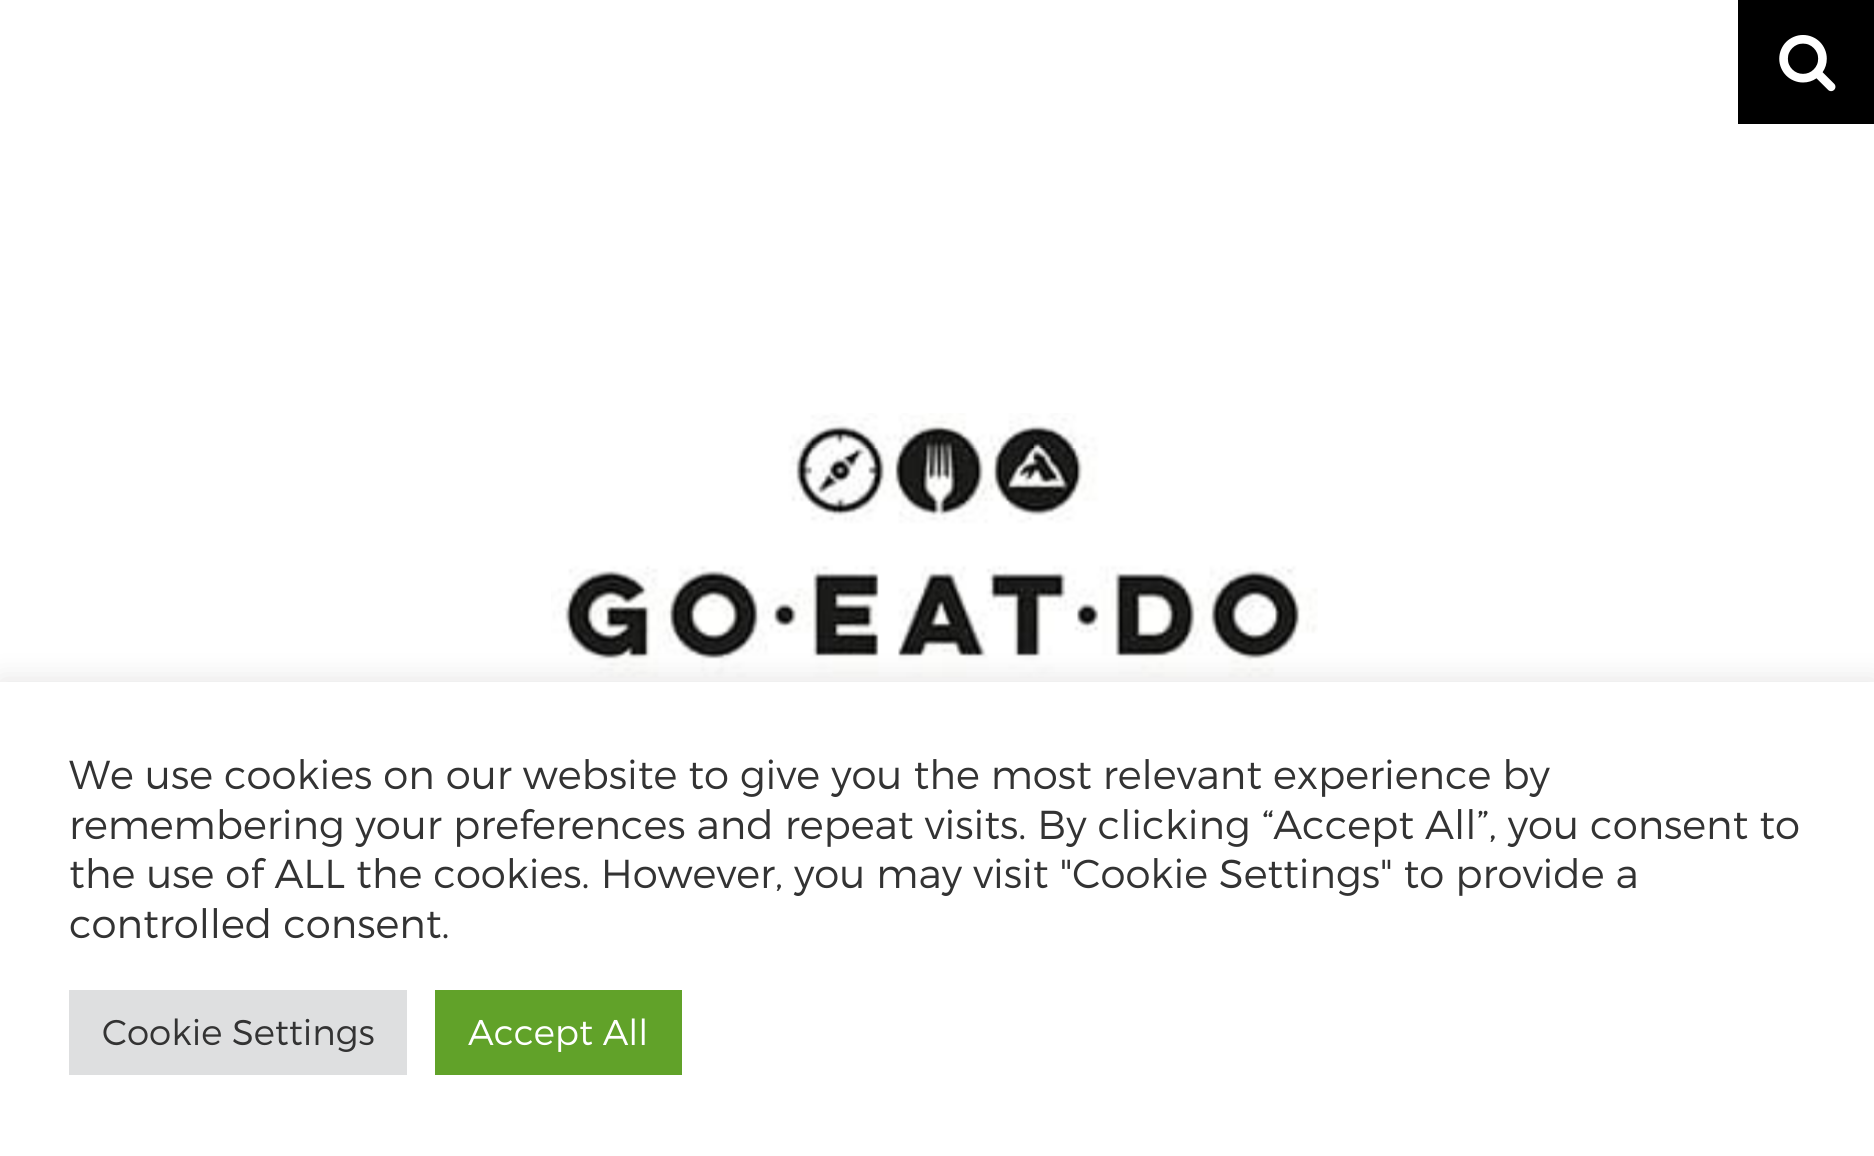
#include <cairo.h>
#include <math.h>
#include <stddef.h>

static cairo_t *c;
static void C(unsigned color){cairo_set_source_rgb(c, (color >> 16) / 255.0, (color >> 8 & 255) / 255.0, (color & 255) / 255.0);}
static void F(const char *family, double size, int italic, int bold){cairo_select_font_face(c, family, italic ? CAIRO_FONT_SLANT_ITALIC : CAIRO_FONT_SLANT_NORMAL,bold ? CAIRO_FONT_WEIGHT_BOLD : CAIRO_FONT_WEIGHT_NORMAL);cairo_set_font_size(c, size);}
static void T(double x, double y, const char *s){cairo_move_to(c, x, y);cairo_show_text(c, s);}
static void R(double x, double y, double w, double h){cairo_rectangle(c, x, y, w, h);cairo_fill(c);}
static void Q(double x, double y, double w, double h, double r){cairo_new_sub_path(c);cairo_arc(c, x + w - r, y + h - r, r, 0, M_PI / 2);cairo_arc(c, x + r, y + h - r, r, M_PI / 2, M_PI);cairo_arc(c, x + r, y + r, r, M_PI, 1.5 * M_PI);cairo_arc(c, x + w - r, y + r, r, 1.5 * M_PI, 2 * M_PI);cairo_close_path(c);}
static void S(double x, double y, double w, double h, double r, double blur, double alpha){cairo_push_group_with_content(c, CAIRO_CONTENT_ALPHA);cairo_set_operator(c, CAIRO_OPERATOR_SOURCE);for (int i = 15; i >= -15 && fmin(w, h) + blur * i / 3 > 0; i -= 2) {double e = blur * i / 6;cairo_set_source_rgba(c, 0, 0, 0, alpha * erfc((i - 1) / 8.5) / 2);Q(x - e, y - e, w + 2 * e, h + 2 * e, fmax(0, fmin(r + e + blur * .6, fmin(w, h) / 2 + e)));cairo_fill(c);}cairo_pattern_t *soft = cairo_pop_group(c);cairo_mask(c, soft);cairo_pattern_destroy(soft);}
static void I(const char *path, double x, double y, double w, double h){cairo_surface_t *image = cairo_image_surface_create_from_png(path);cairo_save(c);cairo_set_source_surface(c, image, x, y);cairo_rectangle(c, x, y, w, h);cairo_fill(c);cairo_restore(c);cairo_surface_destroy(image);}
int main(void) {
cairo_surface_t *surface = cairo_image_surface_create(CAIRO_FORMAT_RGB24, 1874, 1156);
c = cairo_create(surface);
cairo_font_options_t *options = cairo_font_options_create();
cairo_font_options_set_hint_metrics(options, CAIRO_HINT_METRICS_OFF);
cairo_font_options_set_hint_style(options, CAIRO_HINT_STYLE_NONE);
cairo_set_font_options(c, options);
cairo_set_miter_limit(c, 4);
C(0xffffff);
cairo_paint(c);
C(0x000000);
R(1738,0,136,124);
I("1.png",1779,35,57,57);
I("2.png",551,413,767,269);
C(0xacabab);
S(0,679,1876,476,0,14,.3);
C(0xffffff);
R(0,682,1874,474);
F("Montserrat Light",40.35,0,0);
C(0x333333);
T(69,789,"We use cookies on our website to give you the most relevant experience by");
T(69,839,"remembering your preferences and repeat visits. By clicking “Accept All”, you consent to");
T(69,888,"the use of ALL the cookies. However, you may visit \"Cookie Settings\" to provide a");
T(69,938,"controlled consent.");
C(0xdedfe0);
R(69,990,338,85);
F("Montserrat Light",35.75,0,0);
C(0x333333);
T(102,1045,"Cookie Settings");
C(0x61a229);
R(435,990,247,85);
C(0xffffff);
T(468,1045,"Accept All");
cairo_surface_write_to_png(surface, "o.png");
cairo_font_options_destroy(options);
cairo_destroy(c);
cairo_surface_destroy(surface);
return 0;
}
